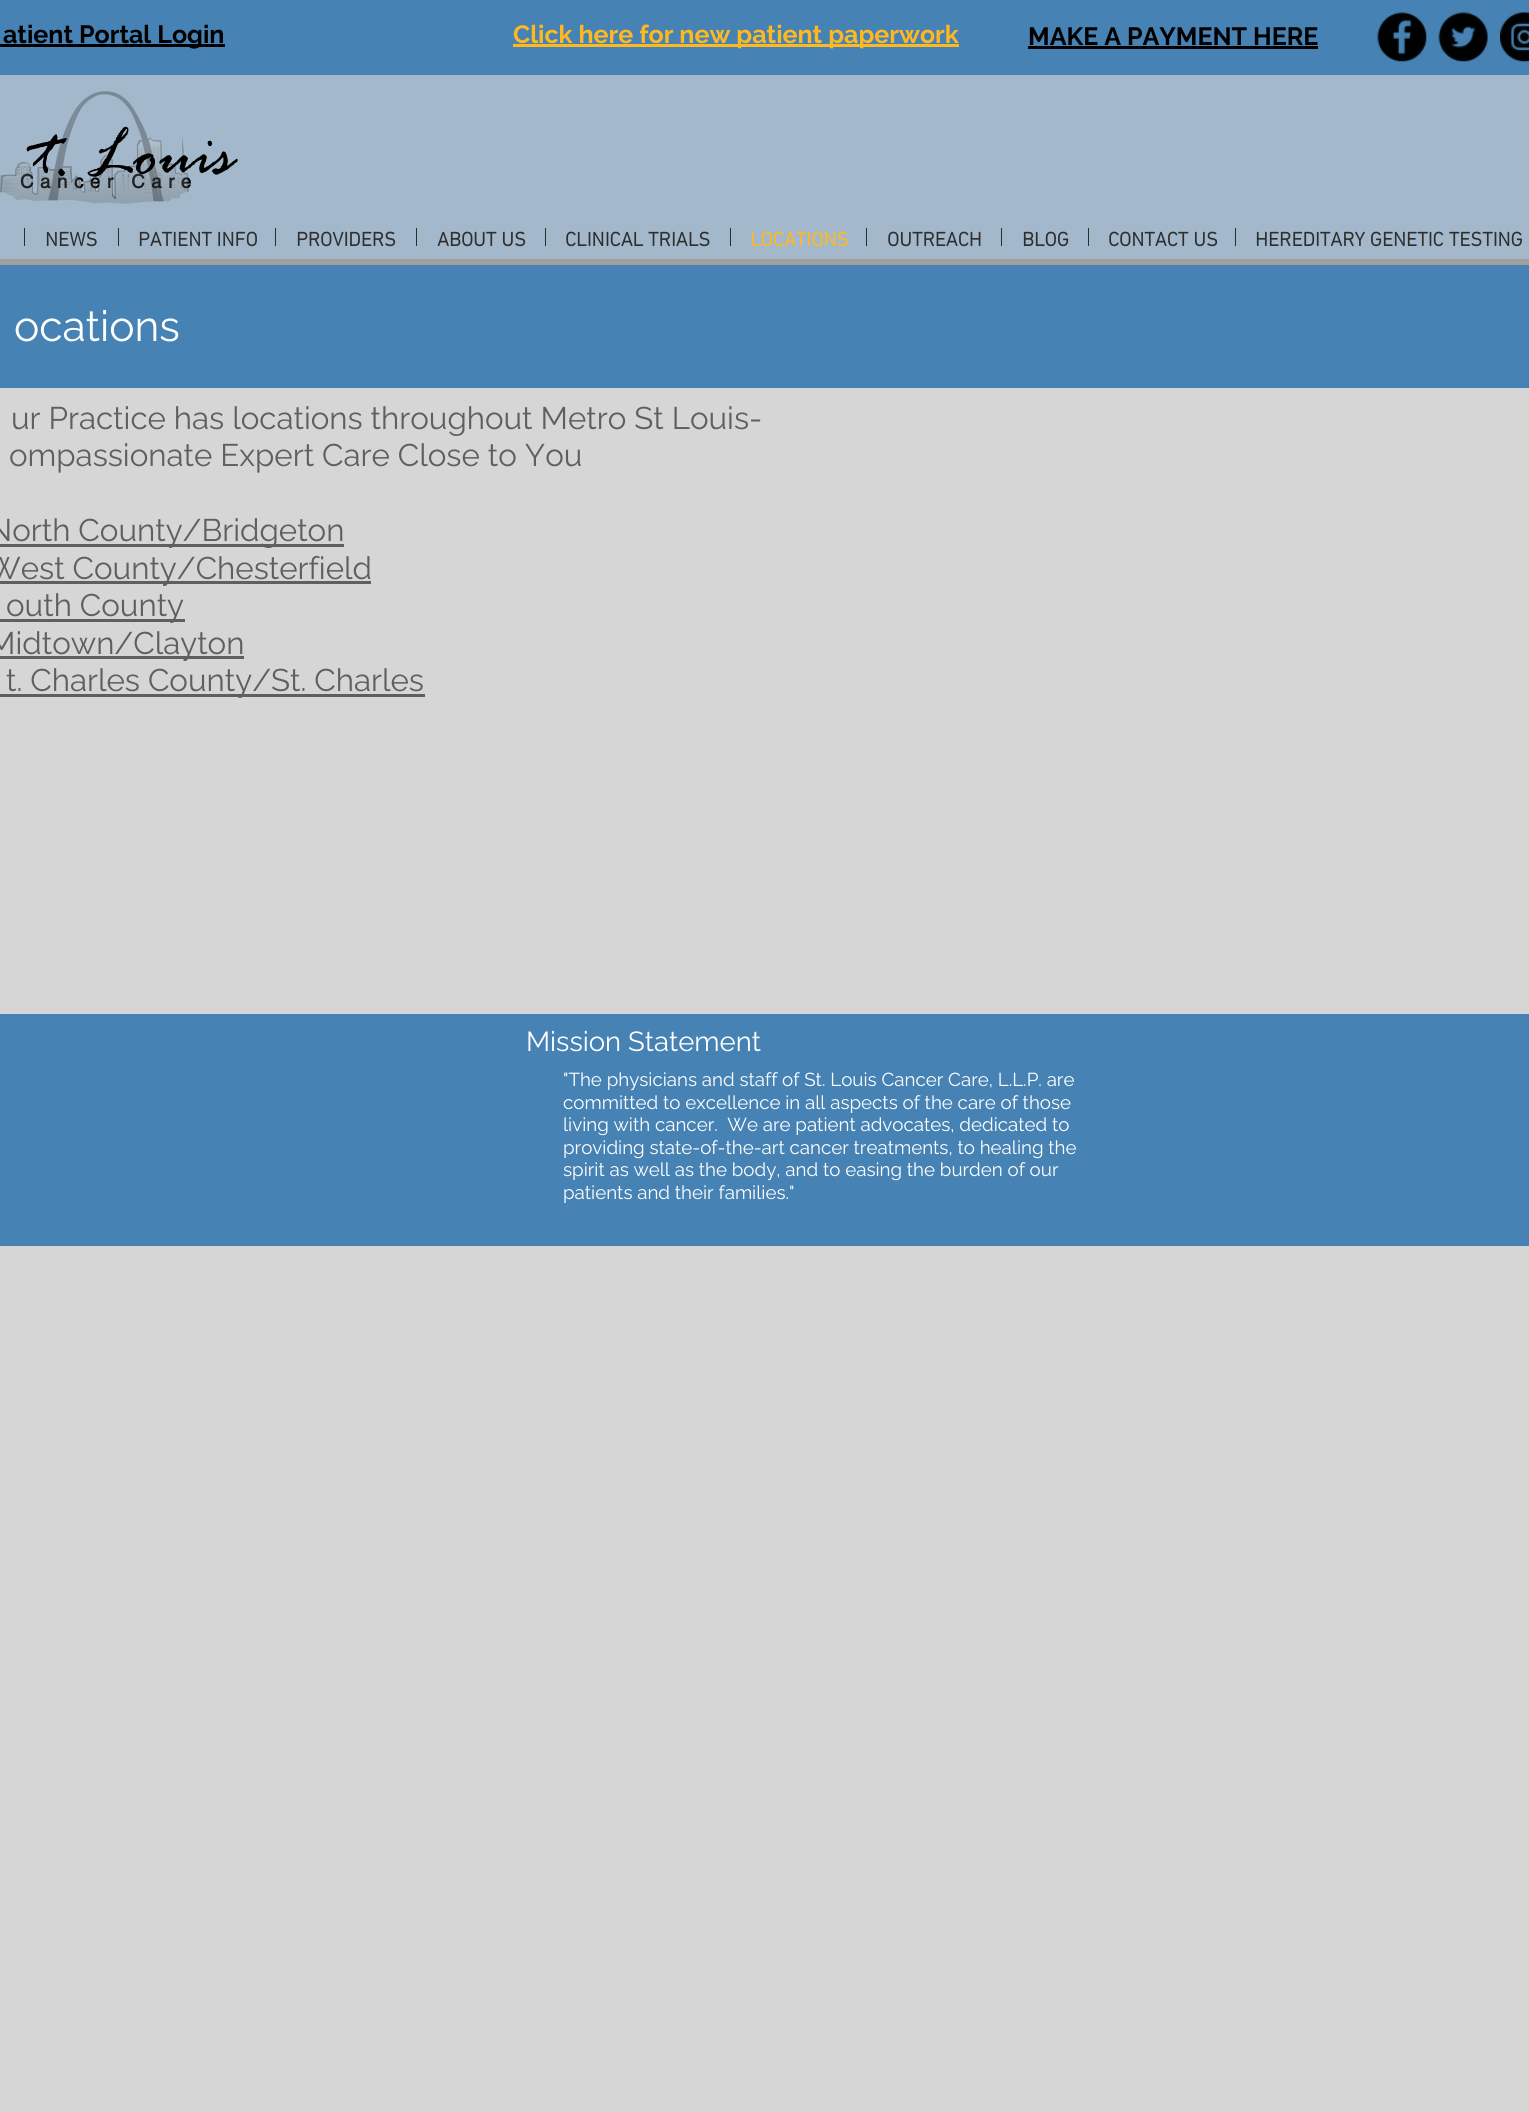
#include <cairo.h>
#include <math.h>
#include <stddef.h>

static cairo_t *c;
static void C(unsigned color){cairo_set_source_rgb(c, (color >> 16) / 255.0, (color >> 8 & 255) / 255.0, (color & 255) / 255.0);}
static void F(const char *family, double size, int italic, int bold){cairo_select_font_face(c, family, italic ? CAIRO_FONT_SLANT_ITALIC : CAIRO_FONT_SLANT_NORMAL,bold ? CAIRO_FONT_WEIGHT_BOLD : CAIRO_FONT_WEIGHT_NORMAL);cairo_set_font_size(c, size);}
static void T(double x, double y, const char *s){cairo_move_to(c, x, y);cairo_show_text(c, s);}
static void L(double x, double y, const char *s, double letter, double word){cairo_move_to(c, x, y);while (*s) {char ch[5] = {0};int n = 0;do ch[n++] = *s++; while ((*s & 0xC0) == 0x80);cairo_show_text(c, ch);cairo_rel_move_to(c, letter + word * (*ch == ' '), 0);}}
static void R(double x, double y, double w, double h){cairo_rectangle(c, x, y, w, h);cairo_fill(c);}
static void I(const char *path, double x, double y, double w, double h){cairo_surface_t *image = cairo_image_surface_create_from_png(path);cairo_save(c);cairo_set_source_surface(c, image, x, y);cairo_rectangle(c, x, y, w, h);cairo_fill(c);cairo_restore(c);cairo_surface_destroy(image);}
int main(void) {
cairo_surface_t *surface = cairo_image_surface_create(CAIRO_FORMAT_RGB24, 1529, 2112);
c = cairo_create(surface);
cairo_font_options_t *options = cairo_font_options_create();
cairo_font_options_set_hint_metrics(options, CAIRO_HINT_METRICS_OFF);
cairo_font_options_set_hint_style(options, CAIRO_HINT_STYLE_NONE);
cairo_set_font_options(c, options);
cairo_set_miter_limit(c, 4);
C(0xd6d6d6);
cairo_paint(c);
C(0x4682b4);
R(0,0,1529,75);
C(0x000000);
R(0,44,225,3);
F("Raleway",25,0,1);
T(3,43,"atient Portal Login");
C(0xffb81f);
R(513,44,446,3);
T(513,43,"Click here for new patient paperwork");
C(0x000000);
T(1028,45,"MAKE A PAYMENT HERE");
R(1028,46,290,3);
I("1.png",1377,12,50,50);
I("2.png",1438,12,50,50);
I("3.png",1500,12,29,50);
C(0xa3b9cb);
R(0,75,1529,184);
F("helvetica",18.75,0,1);
C(0x000000);
L(20,188,"Cancer Care",6.5,0);
I("4.png",0,91,189,113);
F("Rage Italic",70,0,0);
T(35,176,"t. Louis");
C(0x2f2e2e);
R(24,228,1,18);
F("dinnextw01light",20,0,1);
T(45,246,"NEWS");
R(118,228,1,18);
T(138,246,"PATIENT INFO");
R(275,228,1,18);
T(296,246,"PROVIDERS");
R(416,228,1,18);
T(437,246,"ABOUT US");
R(545,228,1,18);
T(565,246,"CLINICAL TRIALS");
R(730,228,1,18);
C(0xffb81f);
T(750,246,"LOCATIONS");
C(0x2f2e2e);
R(866,228,1,18);
T(887,246,"OUTREACH");
R(1001,228,1,18);
T(1022,246,"BLOG");
R(1088,228,1,18);
T(1108,246,"CONTACT US");
R(1235,228,1,18);
T(1255,246,"HEREDITARY GENETIC TESTING");
C(0xa0a09f);
R(0,259,1529,6);
C(0x4682b4);
R(0,265,1529,123);
F("Raleway",42.5,0,0);
C(0xffffff);
T(14,341,"ocations");
F("Raleway",31.25,0,0);
C(0x605e5e);
T(11,429,"ur Practice has locations throughout Metro St Louis-");
T(9,466,"ompassionate Expert Care Close to You");
R(0,544,344,3);
T(-12,541,"North County/Bridgeton");
R(0,581,371,3);
T(-12,579,"West County/Chesterfield");
R(0,619,185,3);
T(6,616,"outh County");
R(0,656,244,3);
T(-12,654,"Midtown/Clayton");
R(0,694,425,3);
T(6,691,"t. Charles County/St. Charles");
C(0x4682b4);
R(0,1014,1529,232);
F("Raleway",27.5,0,0);
C(0xffffff);
T(526,1051,"Mission Statement");
F("Raleway",18.75,0,0);
T(563,1086,"\"The physicians and staff of St. Louis Cancer Care, L.L.P. are");
T(563,1109,"committed to excellence in all aspects of the care of those");
T(563,1131,"living with cancer.  We are patient advocates, dedicated to");
T(563,1154,"providing state-of-the-art cancer treatments, to healing the");
T(563,1176,"spirit as well as the body, and to easing the burden of our");
T(563,1199,"patients and their families.\"");
cairo_surface_write_to_png(surface, "o.png");
cairo_font_options_destroy(options);
cairo_destroy(c);
cairo_surface_destroy(surface);
return 0;
}
